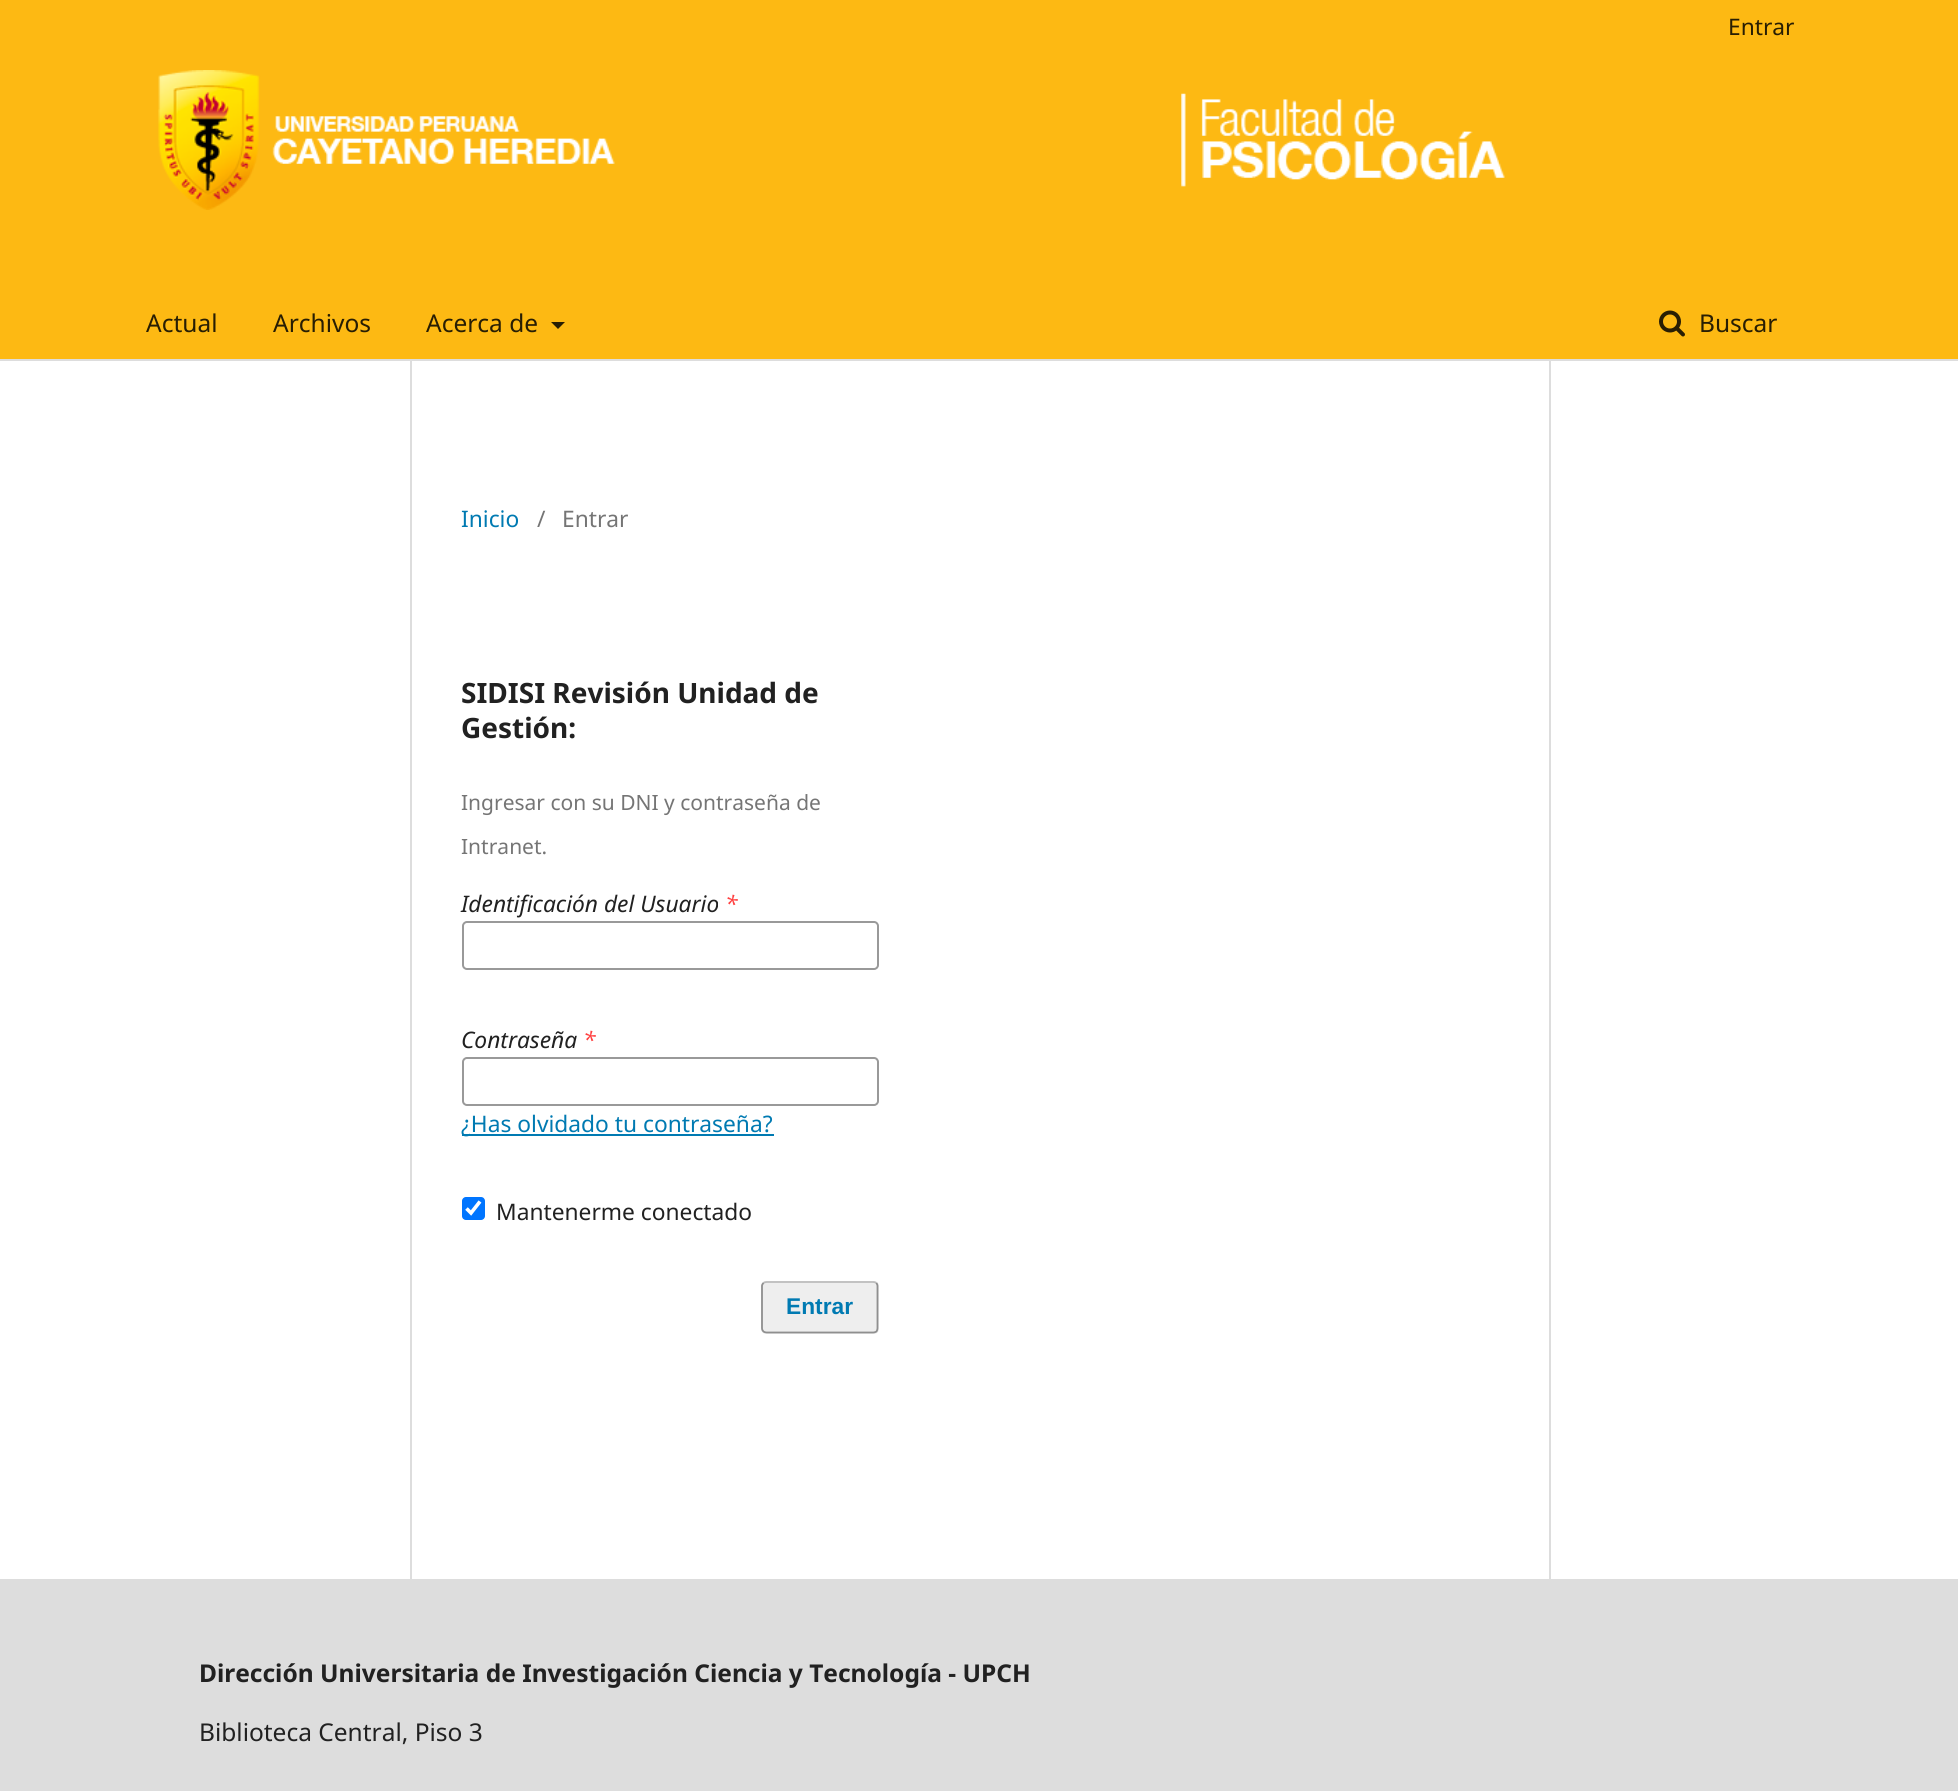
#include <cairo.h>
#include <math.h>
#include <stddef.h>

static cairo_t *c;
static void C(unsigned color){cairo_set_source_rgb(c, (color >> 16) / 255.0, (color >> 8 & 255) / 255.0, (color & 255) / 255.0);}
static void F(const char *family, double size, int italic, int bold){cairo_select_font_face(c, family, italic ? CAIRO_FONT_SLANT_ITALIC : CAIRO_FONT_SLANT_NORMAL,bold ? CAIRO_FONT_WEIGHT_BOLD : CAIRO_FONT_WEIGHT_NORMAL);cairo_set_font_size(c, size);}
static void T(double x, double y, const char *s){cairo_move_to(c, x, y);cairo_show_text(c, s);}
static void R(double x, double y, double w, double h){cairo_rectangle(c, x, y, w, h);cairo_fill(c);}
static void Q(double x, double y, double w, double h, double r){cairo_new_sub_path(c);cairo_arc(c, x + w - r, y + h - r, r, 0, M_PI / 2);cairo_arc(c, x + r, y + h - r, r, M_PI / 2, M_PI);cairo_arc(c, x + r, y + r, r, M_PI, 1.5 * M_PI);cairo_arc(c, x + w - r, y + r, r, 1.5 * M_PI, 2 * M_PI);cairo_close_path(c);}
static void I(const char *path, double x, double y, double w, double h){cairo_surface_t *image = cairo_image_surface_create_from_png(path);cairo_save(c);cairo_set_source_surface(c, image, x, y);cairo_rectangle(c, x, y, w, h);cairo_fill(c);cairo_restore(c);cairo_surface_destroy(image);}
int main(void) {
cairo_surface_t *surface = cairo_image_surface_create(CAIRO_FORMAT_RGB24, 1958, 1791);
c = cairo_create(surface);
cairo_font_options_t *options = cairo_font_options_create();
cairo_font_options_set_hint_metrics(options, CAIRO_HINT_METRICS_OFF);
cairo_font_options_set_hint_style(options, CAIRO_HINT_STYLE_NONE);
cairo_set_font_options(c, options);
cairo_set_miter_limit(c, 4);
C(0xffffff);
cairo_paint(c);
C(0xfdb913);
R(0,0,1958,359);
C(0xdddddd);
R(0,359,1958,2);
F("Noto Sans",22.75,0,0);
C(0x281e03);
T(1728,35,"Entrar");
I("1.png",158,70,1347,140);
F("Noto Sans",24.5,0,0);
T(146,332,"Actual");
T(273,332,"Archivos");
T(426,332,"Acerca de");
cairo_new_path(c);
cairo_move_to(c,551,322);
cairo_line_to(c,565,322);
cairo_line_to(c,558,329);
cairo_close_path(c);
cairo_fill(c);
I("2.png",1659,310,26,27);
T(1699,332,"Buscar");
C(0xdddddd);
R(410,361,2,1218);
F("Noto Sans",22.75,0,0);
C(0x007ab2);
T(461,527,"Inicio");
C(0x757575);
T(537,527,"/");
T(562,527,"Entrar");
F("Noto Sans",28,0,1);
C(0x212121);
T(461,703,"SIDISI Revisión Unidad de");
T(461,738,"Gestión:");
F("Noto Sans",21,0,0);
C(0x757575);
T(461,810,"Ingresar con su DNI y contraseña de");
T(461,854,"Intranet.");
F("Noto Sans",22.75,1,0);
C(0x212121);
T(461,912,"Identificación del Usuario");
C(0xff4040);
T(725,912,"*");
Q(463,922,415,47,4);
C(0x999999);
cairo_stroke(c);
C(0x212121);
T(461,1048,"Contraseña");
C(0xff4040);
T(583,1048,"*");
Q(463,1058,415,47,4);
C(0x999999);
cairo_stroke(c);
C(0x007ab2);
R(462,1134,312,2);
F("Noto Sans",22.75,0,0);
T(461,1132,"¿Has olvidado tu contraseña?");
C(0x0075ff);
Q(462,1197,23,23,4);
cairo_fill(c);
cairo_new_path(c);
cairo_move_to(c,466.5,1208.5);
cairo_line_to(c,471,1213);
cairo_line_to(c,480,1201.5);
C(0xffffff);
cairo_set_line_width(c,3.6);
cairo_stroke(c);
C(0x212121);
T(496,1220,"Mantenerme conectado");
C(0xeeeeee);
Q(761,1281,118,53,5);
cairo_fill(c);
cairo_new_path(c);
cairo_move_to(c,763.5,1283);
cairo_curve_to(c,764,1282.5,765.5,1282,766.5,1282);
cairo_line_to(c,873,1282);
cairo_curve_to(c,874.5,1282,875.5,1282.5,876.5,1283);
C(0xbbbbbb);
cairo_set_line_width(c,1.8);
cairo_stroke(c);
cairo_new_path(c);
cairo_move_to(c,876.5,1283);
cairo_curve_to(c,877,1284,877.5,1285,877.5,1286);
cairo_line_to(c,877.5,1328);
cairo_curve_to(c,877.5,1329.5,877,1330.5,876.5,1331.5);
cairo_curve_to(c,875.5,1332,874.5,1332.5,873,1332.5);
cairo_line_to(c,766.5,1332.5);
cairo_curve_to(c,765.5,1332.5,764,1332,763.5,1331.5);
cairo_curve_to(c,762.5,1330.5,762,1329.5,762,1328);
cairo_line_to(c,762,1286);
cairo_curve_to(c,762,1285,762.5,1284,763.5,1283);
cairo_set_source_rgba(c,0,0,0,0.4);
cairo_stroke(c);
F("Liberation Sans",22.75,0,1);
C(0x007ab2);
T(786,1314,"Entrar");
C(0xdddddd);
R(1549,361,2,1218);
R(0,1579,1958,212);
F("Noto Sans",24.5,0,1);
C(0x212121);
T(199,1682,"Dirección Universitaria de Investigación Ciencia y Tecnología - UPCH");
F("Noto Sans",24.5,0,0);
T(199,1741,"Biblioteca Central, Piso 3");
cairo_surface_write_to_png(surface, "o.png");
cairo_font_options_destroy(options);
cairo_destroy(c);
cairo_surface_destroy(surface);
return 0;
}
